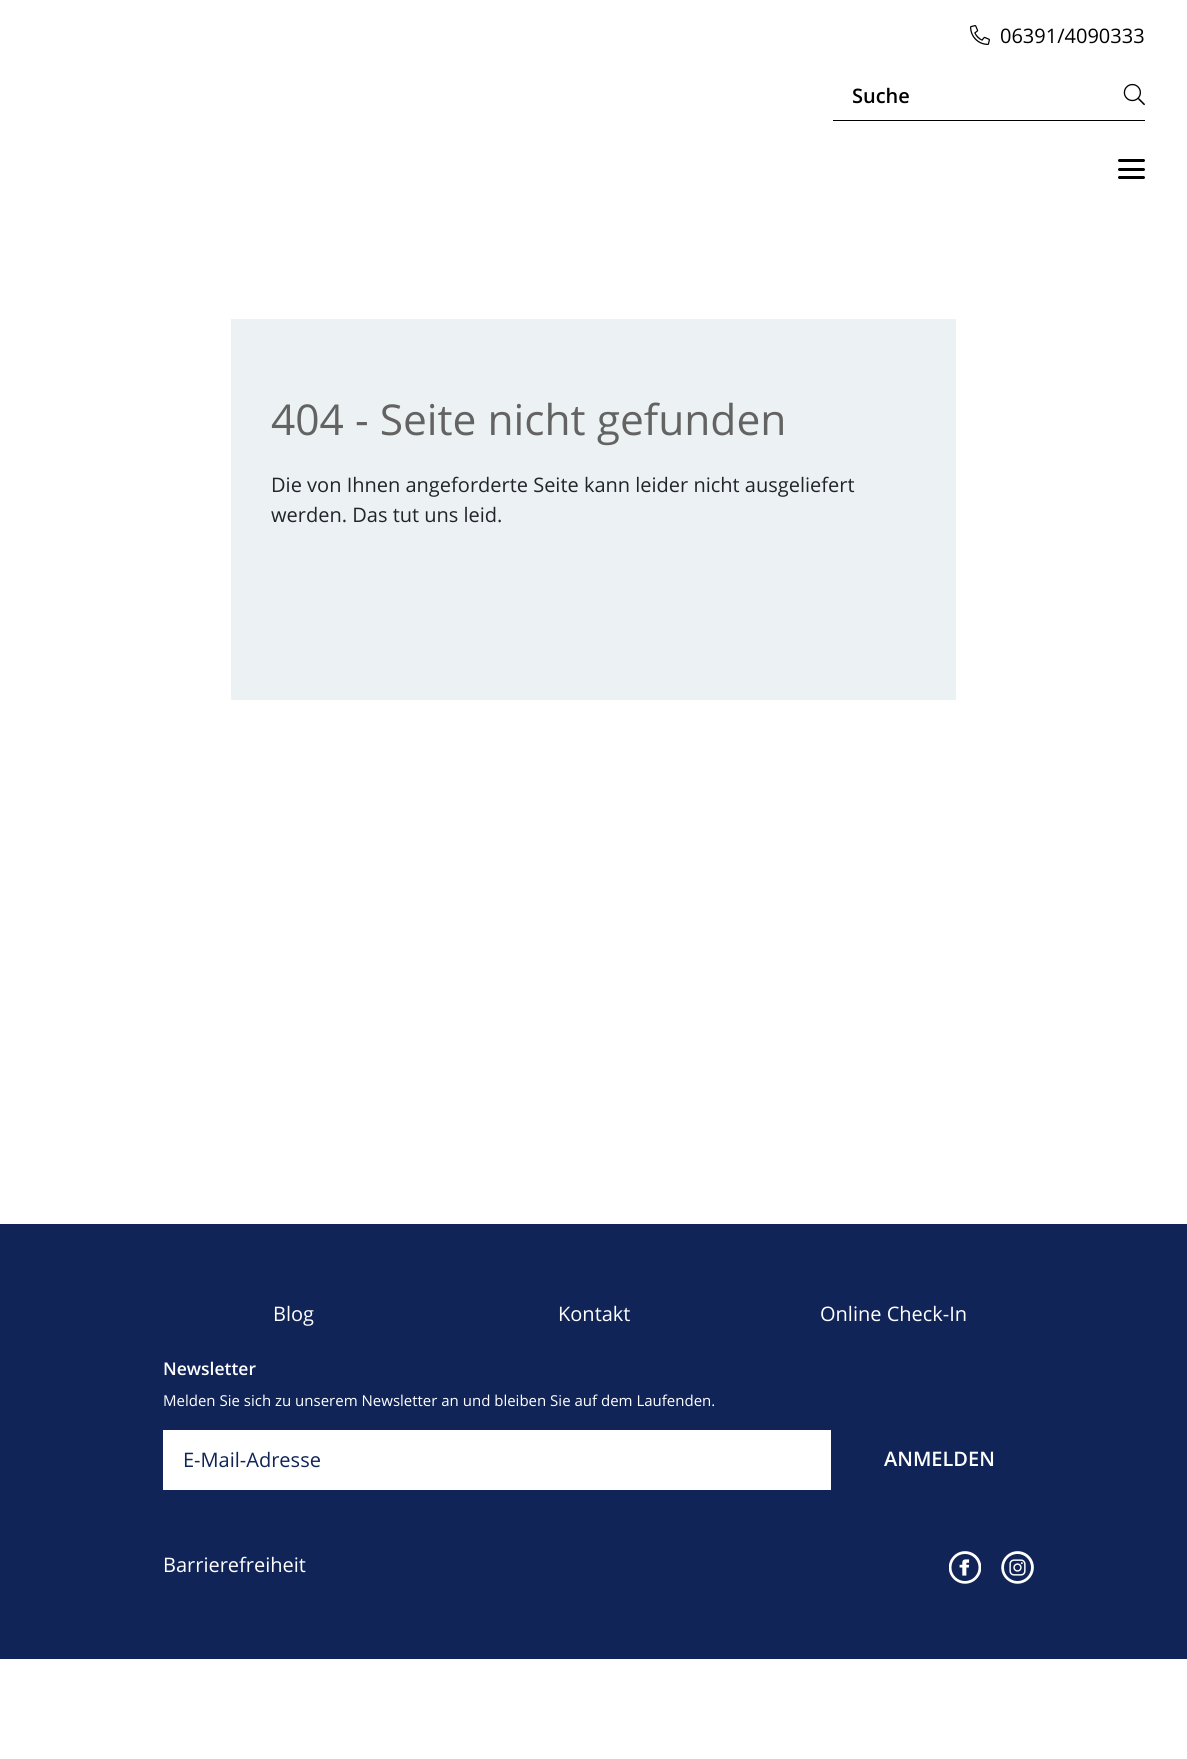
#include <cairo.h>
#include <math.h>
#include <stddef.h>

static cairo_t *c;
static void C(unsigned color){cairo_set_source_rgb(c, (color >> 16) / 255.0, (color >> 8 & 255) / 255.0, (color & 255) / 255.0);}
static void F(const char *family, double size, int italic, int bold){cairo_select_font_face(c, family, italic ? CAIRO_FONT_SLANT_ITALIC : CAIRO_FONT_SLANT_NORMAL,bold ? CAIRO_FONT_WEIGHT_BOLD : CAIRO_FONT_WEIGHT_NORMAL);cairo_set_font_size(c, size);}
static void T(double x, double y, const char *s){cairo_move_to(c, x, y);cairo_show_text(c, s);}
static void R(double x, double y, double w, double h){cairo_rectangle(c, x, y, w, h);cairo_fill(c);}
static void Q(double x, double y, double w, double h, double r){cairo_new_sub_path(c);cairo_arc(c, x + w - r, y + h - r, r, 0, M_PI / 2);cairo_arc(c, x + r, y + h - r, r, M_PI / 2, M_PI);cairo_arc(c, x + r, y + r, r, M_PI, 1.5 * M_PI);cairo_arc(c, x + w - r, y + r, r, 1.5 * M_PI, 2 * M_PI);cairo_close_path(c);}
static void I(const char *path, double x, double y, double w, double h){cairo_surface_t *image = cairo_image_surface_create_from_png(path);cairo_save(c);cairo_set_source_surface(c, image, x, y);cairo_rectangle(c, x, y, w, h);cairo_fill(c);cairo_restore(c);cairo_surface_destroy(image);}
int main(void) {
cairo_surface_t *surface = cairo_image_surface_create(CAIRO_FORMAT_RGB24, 1187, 1759);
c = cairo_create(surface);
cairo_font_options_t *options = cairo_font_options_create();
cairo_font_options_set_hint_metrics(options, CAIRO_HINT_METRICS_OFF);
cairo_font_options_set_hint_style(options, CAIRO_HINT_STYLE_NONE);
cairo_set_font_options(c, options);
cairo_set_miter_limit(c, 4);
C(0xffffff);
cairo_paint(c);
I("1.png",970,25,20,20);
F("Open Sans",20,0,0);
C(0x000000);
T(1000,43,"06391/4090333");
R(833,120,312,1);
F("Open Sans SemiBold",20,0,0);
T(852,103,"Suche");
I("2.png",1123,83,22,23);
Q(1118,159,27,3,1.5);
cairo_fill(c);
Q(1118,168,27,3,1.5);
cairo_fill(c);
Q(1118,176,27,3,1.5);
cairo_fill(c);
C(0xecf2f3);
R(231,319,725,381);
F("Open Sans",42.5,0,0);
C(0x636363);
T(271,435,"404 - Seite nicht gefunden");
F("Open Sans",20,0,0);
C(0x212529);
T(271,492,"Die von Ihnen angeforderte Seite kann leider nicht ausgeliefert");
T(271,522,"werden. Das tut uns leid.");
C(0x102457);
R(0,1224,1187,435);
C(0xffffff);
T(273,1321,"Blog");
T(558,1321,"Kontakt");
T(820,1321,"Online Check-In");
F("Open Sans SemiBold",17.5,0,0);
T(163,1375,"Newsletter");
F("Open Sans",15,0,0);
T(163,1406,"Melden Sie sich zu unserem Newsletter an und bleiben Sie auf dem Laufenden.");
R(163,1430,668,60);
F("Open Sans",20,0,0);
C(0x102457);
T(183,1467,"E-Mail-Adresse");
F("Open Sans SemiBold",20,0,0);
C(0xffffff);
T(884,1466,"ANMELDEN");
F("Open Sans",20,0,0);
T(163,1572,"Barrierefreiheit");
I("3.png",949,1551,32,33);
I("4.png",1001,1551,33,33);
cairo_surface_write_to_png(surface, "o.png");
cairo_font_options_destroy(options);
cairo_destroy(c);
cairo_surface_destroy(surface);
return 0;
}
